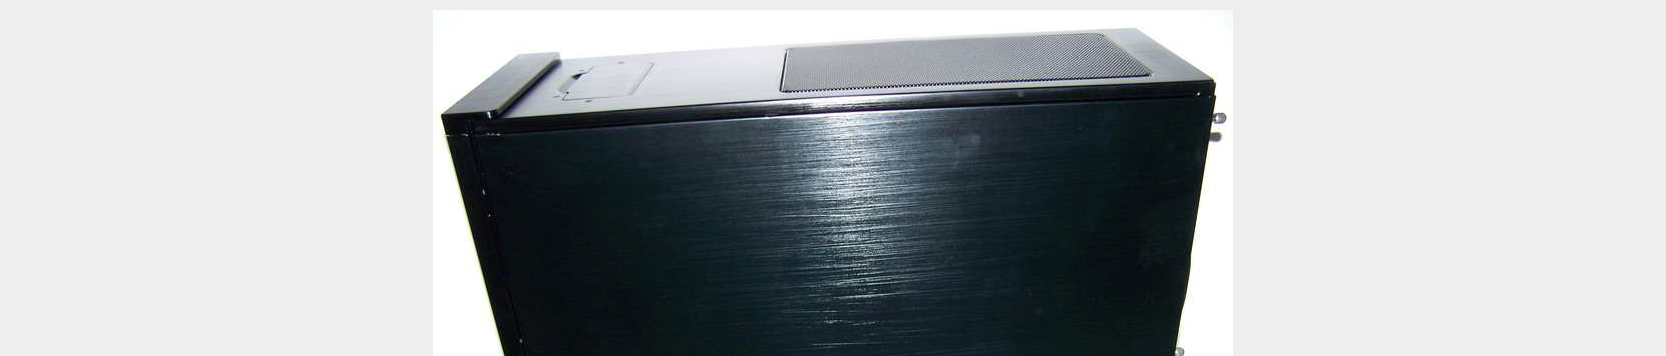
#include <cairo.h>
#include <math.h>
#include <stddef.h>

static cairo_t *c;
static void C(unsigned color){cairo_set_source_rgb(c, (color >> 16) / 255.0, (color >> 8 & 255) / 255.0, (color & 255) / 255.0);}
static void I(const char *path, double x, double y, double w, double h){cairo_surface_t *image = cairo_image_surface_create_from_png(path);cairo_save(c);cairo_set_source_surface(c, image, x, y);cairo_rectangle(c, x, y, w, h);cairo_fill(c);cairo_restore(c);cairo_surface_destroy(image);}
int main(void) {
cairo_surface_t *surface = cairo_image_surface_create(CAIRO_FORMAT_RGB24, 1666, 356);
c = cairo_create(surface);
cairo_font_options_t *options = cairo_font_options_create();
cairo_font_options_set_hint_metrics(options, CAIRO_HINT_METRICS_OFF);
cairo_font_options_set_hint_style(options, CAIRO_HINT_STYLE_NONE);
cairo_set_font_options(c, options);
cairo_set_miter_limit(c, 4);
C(0xeeeeee);
cairo_paint(c);
I("1.png",433,10,800,346);
cairo_surface_write_to_png(surface, "o.png");
cairo_font_options_destroy(options);
cairo_destroy(c);
cairo_surface_destroy(surface);
return 0;
}
